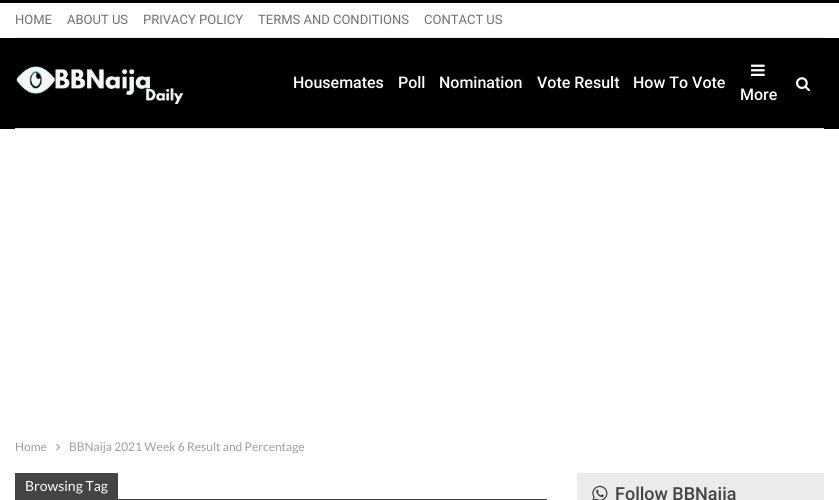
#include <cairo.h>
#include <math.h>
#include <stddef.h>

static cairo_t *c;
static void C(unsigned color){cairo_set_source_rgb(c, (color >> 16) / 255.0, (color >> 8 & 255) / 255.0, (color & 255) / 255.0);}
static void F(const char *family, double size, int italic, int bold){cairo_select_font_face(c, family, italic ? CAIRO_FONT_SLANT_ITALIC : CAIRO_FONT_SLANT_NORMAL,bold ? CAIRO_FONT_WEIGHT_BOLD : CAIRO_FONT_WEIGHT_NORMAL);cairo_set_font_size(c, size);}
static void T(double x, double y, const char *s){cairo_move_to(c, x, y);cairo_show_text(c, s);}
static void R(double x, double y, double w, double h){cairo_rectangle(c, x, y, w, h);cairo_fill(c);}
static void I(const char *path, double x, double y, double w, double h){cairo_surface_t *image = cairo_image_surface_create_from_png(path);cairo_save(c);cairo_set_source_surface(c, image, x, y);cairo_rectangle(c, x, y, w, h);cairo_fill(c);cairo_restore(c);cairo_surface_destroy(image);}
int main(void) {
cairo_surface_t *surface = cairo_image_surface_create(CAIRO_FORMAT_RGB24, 839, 500);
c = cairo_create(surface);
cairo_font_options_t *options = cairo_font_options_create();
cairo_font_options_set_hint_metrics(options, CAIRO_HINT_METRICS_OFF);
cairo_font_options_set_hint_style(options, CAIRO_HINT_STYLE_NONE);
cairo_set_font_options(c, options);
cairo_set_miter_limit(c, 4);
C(0xffffff);
cairo_paint(c);
C(0x000000);
R(0,0,839,3);
C(0xefefef);
R(15,37,809,1);
F("Roboto",13,0,0);
C(0x707070);
T(15,24,"HOME");
T(67,24,"ABOUT US");
T(143,24,"PRIVACY POLICY");
T(258,24,"TERMS AND CONDITIONS");
T(424,24,"CONTACT US");
C(0x000000);
R(0,38,839,91);
C(0xdedede);
R(15,128,809,1);
I("1.png",16,66,168,38);
F("Roboto Medium",16,0,0);
C(0xffffff);
T(293,88,"Housemates");
T(398,88,"Poll");
T(439,88,"Nomination");
T(537,88,"Vote Result");
T(633,88,"How To Vote");
I("2.png",751,64,14,12);
T(740,100,"More");
I("3.png",796,77,14,15);
F("Lato",12,0,0);
C(0x9e9e9e);
T(15,451,"Home");
I("4.png",56,443,4,8);
T(69,451,"BBNaija 2021 Week 6 Result and Percentage");
C(0x444444);
R(15,473,103,26);
F("Lato",14,0,0);
C(0xffffff);
T(25,491,"Browsing Tag");
C(0x444444);
R(15,499,532,1);
C(0xebebeb);
R(577,473,247,27);
I("5.png",592,485,16,15);
F("Roboto Medium",18,0,0);
C(0x444444);
T(615,500,"Follow BBNaija");
cairo_surface_write_to_png(surface, "o.png");
cairo_font_options_destroy(options);
cairo_destroy(c);
cairo_surface_destroy(surface);
return 0;
}
